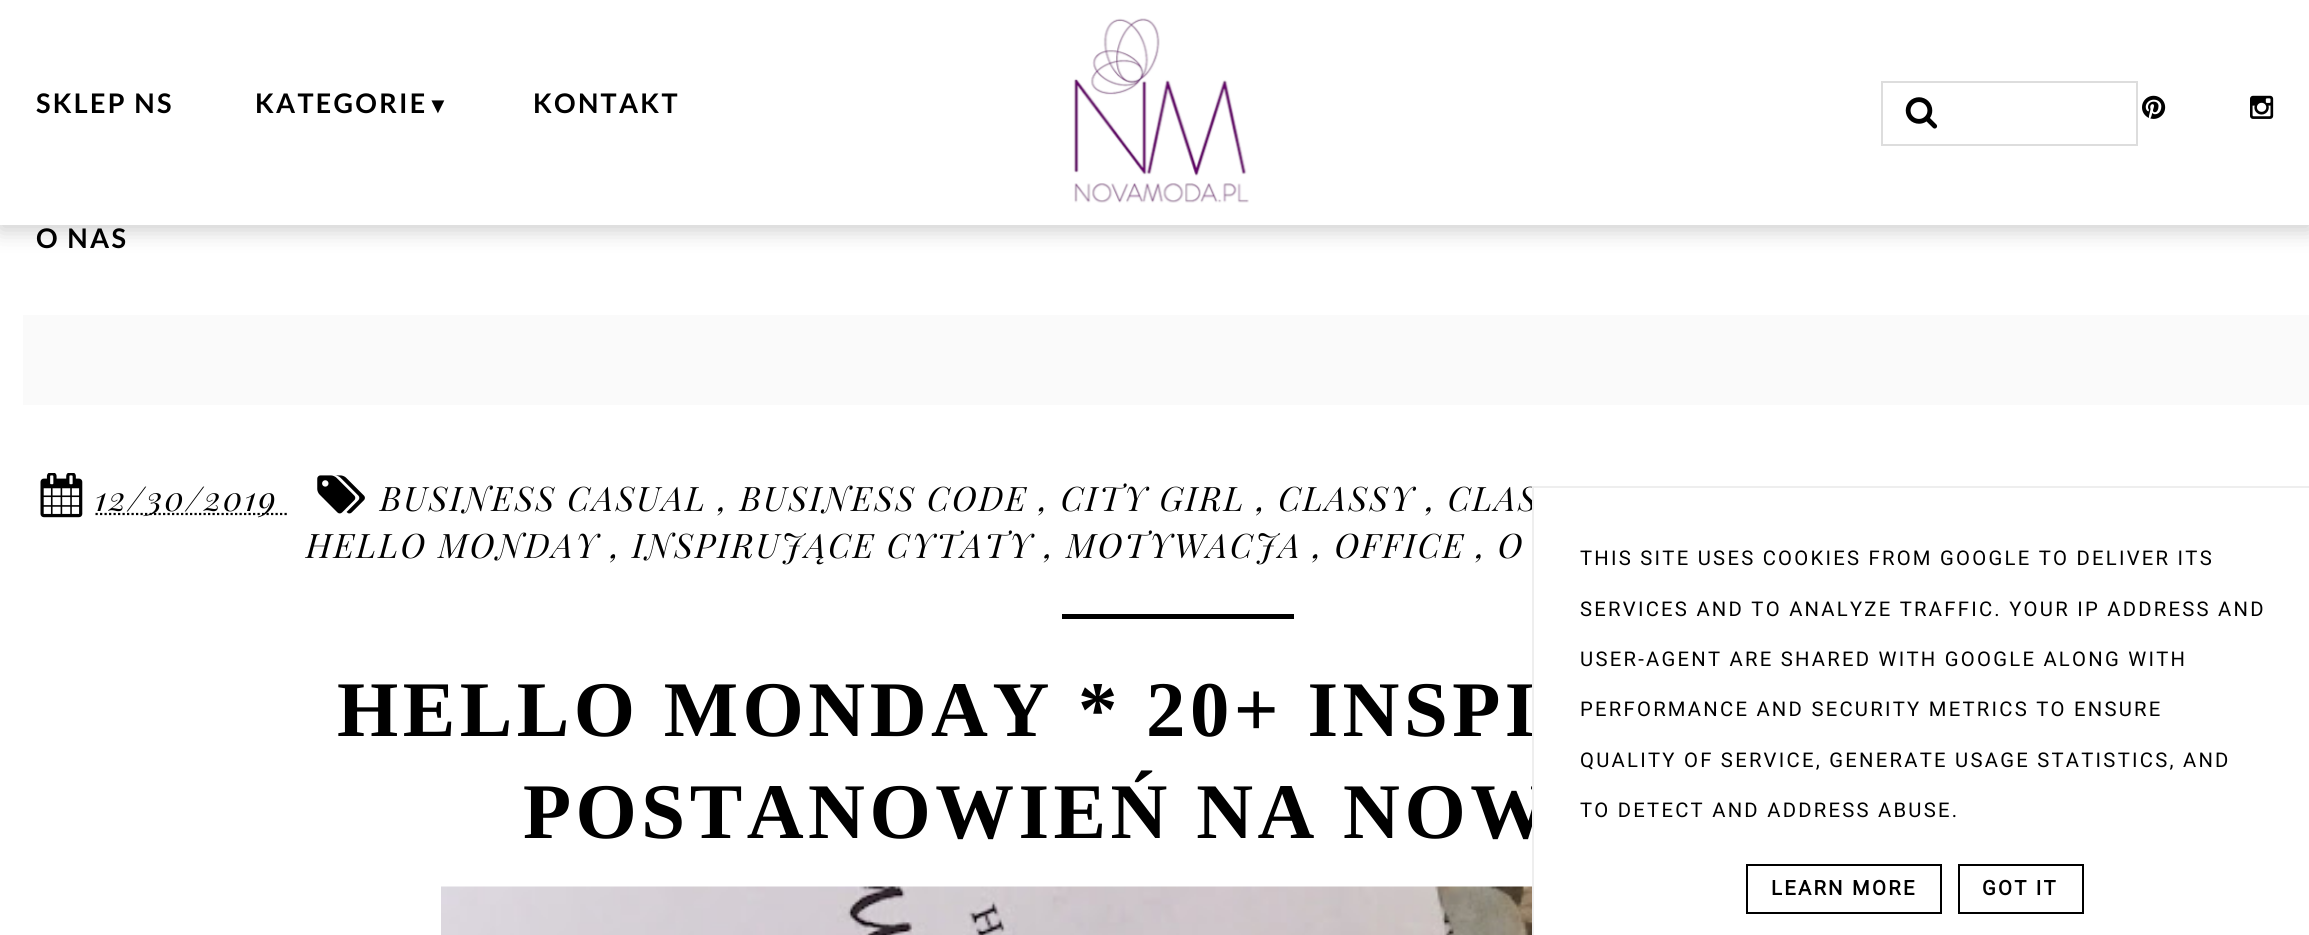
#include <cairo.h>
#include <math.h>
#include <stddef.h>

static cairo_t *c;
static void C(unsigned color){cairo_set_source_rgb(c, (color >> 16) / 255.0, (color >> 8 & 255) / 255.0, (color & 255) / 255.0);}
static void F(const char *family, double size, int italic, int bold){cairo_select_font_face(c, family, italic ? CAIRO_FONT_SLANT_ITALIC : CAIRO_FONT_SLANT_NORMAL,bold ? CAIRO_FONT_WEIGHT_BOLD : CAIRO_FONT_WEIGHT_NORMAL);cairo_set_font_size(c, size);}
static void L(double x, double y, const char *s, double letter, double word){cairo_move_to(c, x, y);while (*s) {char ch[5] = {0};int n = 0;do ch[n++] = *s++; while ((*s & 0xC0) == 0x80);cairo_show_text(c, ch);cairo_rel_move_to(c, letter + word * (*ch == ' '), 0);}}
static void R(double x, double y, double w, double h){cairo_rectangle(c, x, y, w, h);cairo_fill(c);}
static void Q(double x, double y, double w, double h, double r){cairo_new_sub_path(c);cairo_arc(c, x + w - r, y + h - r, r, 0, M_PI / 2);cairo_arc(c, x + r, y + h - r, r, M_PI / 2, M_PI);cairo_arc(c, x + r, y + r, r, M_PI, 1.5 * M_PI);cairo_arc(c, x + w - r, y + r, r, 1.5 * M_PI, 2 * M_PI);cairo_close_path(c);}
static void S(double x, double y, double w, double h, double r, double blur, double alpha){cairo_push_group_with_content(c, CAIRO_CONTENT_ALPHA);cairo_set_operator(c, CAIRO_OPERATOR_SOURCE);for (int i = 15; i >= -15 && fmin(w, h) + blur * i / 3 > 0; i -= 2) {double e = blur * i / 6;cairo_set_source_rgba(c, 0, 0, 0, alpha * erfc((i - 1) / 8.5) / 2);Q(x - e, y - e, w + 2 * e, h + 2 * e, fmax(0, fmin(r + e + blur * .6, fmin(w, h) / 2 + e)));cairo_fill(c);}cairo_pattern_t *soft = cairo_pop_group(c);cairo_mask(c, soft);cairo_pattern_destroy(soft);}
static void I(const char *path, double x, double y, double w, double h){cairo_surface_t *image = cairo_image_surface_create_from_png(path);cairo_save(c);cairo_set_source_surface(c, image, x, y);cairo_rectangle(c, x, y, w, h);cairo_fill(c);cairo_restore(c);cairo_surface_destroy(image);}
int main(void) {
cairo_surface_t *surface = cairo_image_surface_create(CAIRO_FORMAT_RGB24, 2309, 935);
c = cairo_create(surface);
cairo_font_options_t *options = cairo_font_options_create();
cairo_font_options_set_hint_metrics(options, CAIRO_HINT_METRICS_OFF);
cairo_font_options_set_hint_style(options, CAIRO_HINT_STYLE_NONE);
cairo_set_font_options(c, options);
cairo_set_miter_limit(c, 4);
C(0xffffff);
cairo_paint(c);
cairo_save(c);
cairo_rectangle(c,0,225,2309,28);
cairo_clip(c);
C(0xcccccc);
S(0,5,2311,225,0,11,1);
cairo_restore(c);
F("Lato",27,0,1);
C(0x000000);
L(36,113,"SKLEP NS",2.25,0);
L(255,113,"KATEGORIE",2.25,0);
F("Liberation Serif",22,0,1);
L(427,113,"▼",2.25,0);
F("Lato",27,0,1);
L(533,113,"KONTAKT",2.25,0);
L(36,248,"O NAS",2.25,0);
I("1.png",1073,18,176,185);
cairo_rectangle(c,1882,82,255,63);
C(0xdddddd);
cairo_stroke(c);
I("2.png",1905,97,33,32);
I("3.png",2142,95,24,24);
I("4.png",2250,95,24,24);
C(0xfafafa);
R(23,315,2286,90);
I("5.png",40,473,43,45);
cairo_new_path(c);
cairo_move_to(c,95.5,514);
cairo_line_to(c,289,514);
C(0x000000);
cairo_set_line_width(c,2.2);
cairo_set_dash(c,(double[]){2.25,2.25},2,0);
cairo_stroke(c);
F("Playfair Display",33.75,1,0);
L(95,511,"12/30/2019",2.25,0);
I("6.png",317,475,48,39);
L(380,511,"BUSINESS CASUAL , BUSINESS CODE , CITY GIRL , CLASSY , CLAS",2.25,0);
L(306,558,"HELLO MONDAY , INSPIRUJĄCE CYTATY , MOTYWACJA , OFFICE , O",2.25,0);
R(1062,614,232,5);
F("Liberation Serif",78.75,0,1);
L(337,736,"HELLO MONDAY * 20+ INSPI",4.5,0);
L(523,838,"POSTANOWIEŃ NA NOW",4.5,0);
I("7.png",441,886,1091,49);
C(0xffffff);
R(1534,488,15,333);
C(0xeeeeee);
R(1532,486,777,2);
R(1532,486,2,449);
F("Roboto",20.25,0,0);
C(0x000000);
L(1580,565,"THIS SITE USES COOKIES FROM GOOGLE TO DELIVER ITS",2.25,0);
L(1580,616,"SERVICES AND TO ANALYZE TRAFFIC. YOUR IP ADDRESS AND",2.25,0);
L(1580,666,"USER-AGENT ARE SHARED WITH GOOGLE ALONG WITH",2.25,0);
L(1580,716,"PERFORMANCE AND SECURITY METRICS TO ENSURE",2.25,0);
L(1580,767,"QUALITY OF SERVICE, GENERATE USAGE STATISTICS, AND",2.25,0);
L(1580,817,"TO DETECT AND ADDRESS ABUSE.",2.25,0);
cairo_rectangle(c,1747,865,194,48);
cairo_set_line_width(c,2);
cairo_set_dash(c,NULL,0,0);
cairo_stroke(c);
F("Roboto",20.25,0,1);
L(1771,895,"LEARN MORE",2.25,0);
cairo_rectangle(c,1959,865,124,48);
cairo_stroke(c);
L(1982,895,"GOT IT",2.25,0);
cairo_surface_write_to_png(surface, "o.png");
cairo_font_options_destroy(options);
cairo_destroy(c);
cairo_surface_destroy(surface);
return 0;
}
